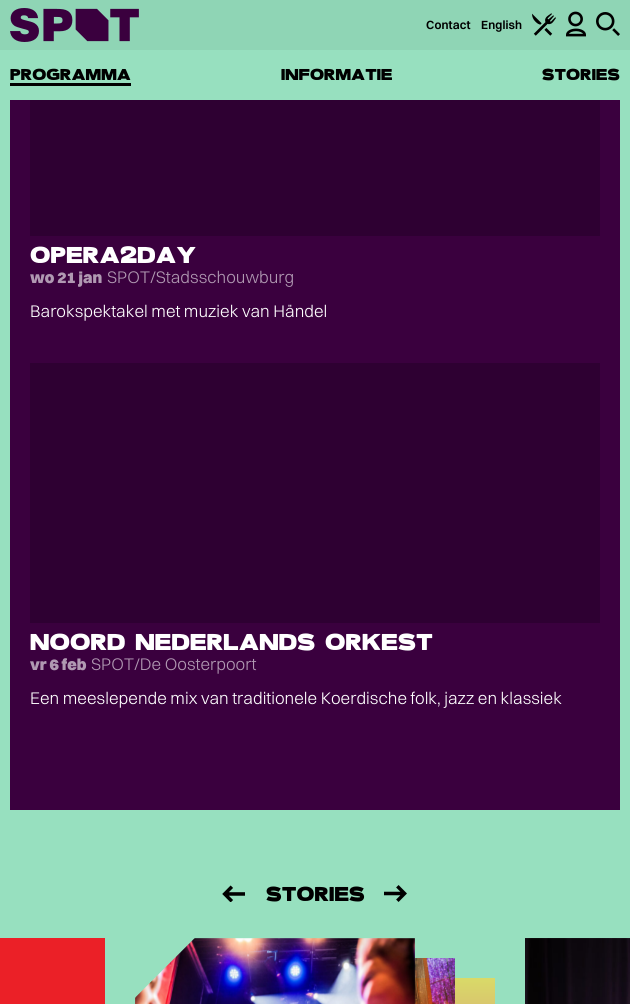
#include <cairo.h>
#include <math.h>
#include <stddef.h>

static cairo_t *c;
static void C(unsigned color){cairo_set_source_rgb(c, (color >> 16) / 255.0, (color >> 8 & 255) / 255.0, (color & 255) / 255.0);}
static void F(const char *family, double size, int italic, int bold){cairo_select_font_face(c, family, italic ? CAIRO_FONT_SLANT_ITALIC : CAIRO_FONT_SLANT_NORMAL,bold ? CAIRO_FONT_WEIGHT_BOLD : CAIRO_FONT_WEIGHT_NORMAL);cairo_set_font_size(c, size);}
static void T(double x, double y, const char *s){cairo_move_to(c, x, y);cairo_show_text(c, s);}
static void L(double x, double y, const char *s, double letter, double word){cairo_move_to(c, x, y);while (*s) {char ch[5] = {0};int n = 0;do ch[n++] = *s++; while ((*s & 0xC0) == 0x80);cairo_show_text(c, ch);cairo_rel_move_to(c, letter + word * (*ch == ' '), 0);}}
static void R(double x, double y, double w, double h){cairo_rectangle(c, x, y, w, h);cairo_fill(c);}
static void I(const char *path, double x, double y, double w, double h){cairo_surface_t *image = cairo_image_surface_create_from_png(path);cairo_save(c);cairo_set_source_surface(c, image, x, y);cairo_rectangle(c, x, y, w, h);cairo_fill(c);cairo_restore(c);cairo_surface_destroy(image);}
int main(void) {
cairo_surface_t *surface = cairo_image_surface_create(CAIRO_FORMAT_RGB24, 630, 1004);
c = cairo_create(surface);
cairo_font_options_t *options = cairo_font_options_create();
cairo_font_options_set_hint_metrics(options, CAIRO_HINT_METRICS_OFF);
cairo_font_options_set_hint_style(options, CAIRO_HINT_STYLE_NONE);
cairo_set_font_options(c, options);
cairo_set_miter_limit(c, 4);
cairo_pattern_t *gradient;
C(0x97e0bf);
cairo_paint(c);
C(0x8fd5b5);
R(0,0,630,50);
I("1.png",10,8,129,34);
F("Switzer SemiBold",12,0,0);
C(0x000000);
L(426,29,"Contact",.1,0);
L(481,29,"English",.1,0);
I("2.png",532,13,24,23);
I("3.png",566,11,20,26);
I("4.png",596,12,24,24);
F("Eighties",22,0,0);
L(10,80,"PROGRAMMA",.1,0);
R(10,83,121,3);
L(281,80,"INFORMATIE",.1,0);
L(542,80,"STORIES",.1,0);
C(0x3a003e);
R(10,100,610,710);
C(0x2e0032);
R(30,100,570,136);
F("Eighties",32,0,0);
C(0xffffff);
L(30,263,"OPERA2DAY",.1,0);
F("Switzer Black",16,0,0);
C(0xb099b2);
T(30,283,"wo 21 jan");
F("Switzer Light",17,0,0);
T(107,283,"SPOT/Stadsschouwburg");
C(0xffffff);
T(30,317,"Barokspektakel met muziek van Händel");
C(0x2e0032);
R(30,363,570,260);
F("Eighties",32,0,0);
C(0xffffff);
L(30,650,"NOORD NEDERLANDS ORKEST",.1,0);
F("Switzer Black",16,0,0);
C(0xb099b2);
T(30,670,"vr 6 feb");
F("Switzer Light",17,0,0);
T(91,670,"SPOT/De Oosterpoort");
C(0xffffff);
T(30,704,"Een meeslepende mix van traditionele Koerdische folk, jazz en klassiek");
I("5.png",222,885,23,17);
F("Eighties",28,0,0);
C(0x000000);
L(266,901,"STORIES",.1,0);
I("6.png",384,885,23,17);
C(0xeb2027);
R(0,938,105,66);
gradient = cairo_pattern_create_linear(355,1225,355,978);
cairo_pattern_add_color_stop_rgba(gradient,0,0.851,0.176,0.588,1);
cairo_pattern_add_color_stop_rgba(gradient,1,0.851,0.855,0.408,1);
cairo_set_source(c,gradient);
cairo_pattern_destroy(gradient);
cairo_new_path(c);
cairo_move_to(c,215,978);
cairo_line_to(c,215,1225);
cairo_line_to(c,465,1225);
cairo_line_to(c,495,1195);
cairo_line_to(c,495,978);
cairo_close_path(c);
cairo_fill(c);
I("8.png",414,958,41,46);
I("7.png",135,938,280,66);
I("9.png",525,938,105,66);
cairo_surface_write_to_png(surface, "o.png");
cairo_font_options_destroy(options);
cairo_destroy(c);
cairo_surface_destroy(surface);
return 0;
}
